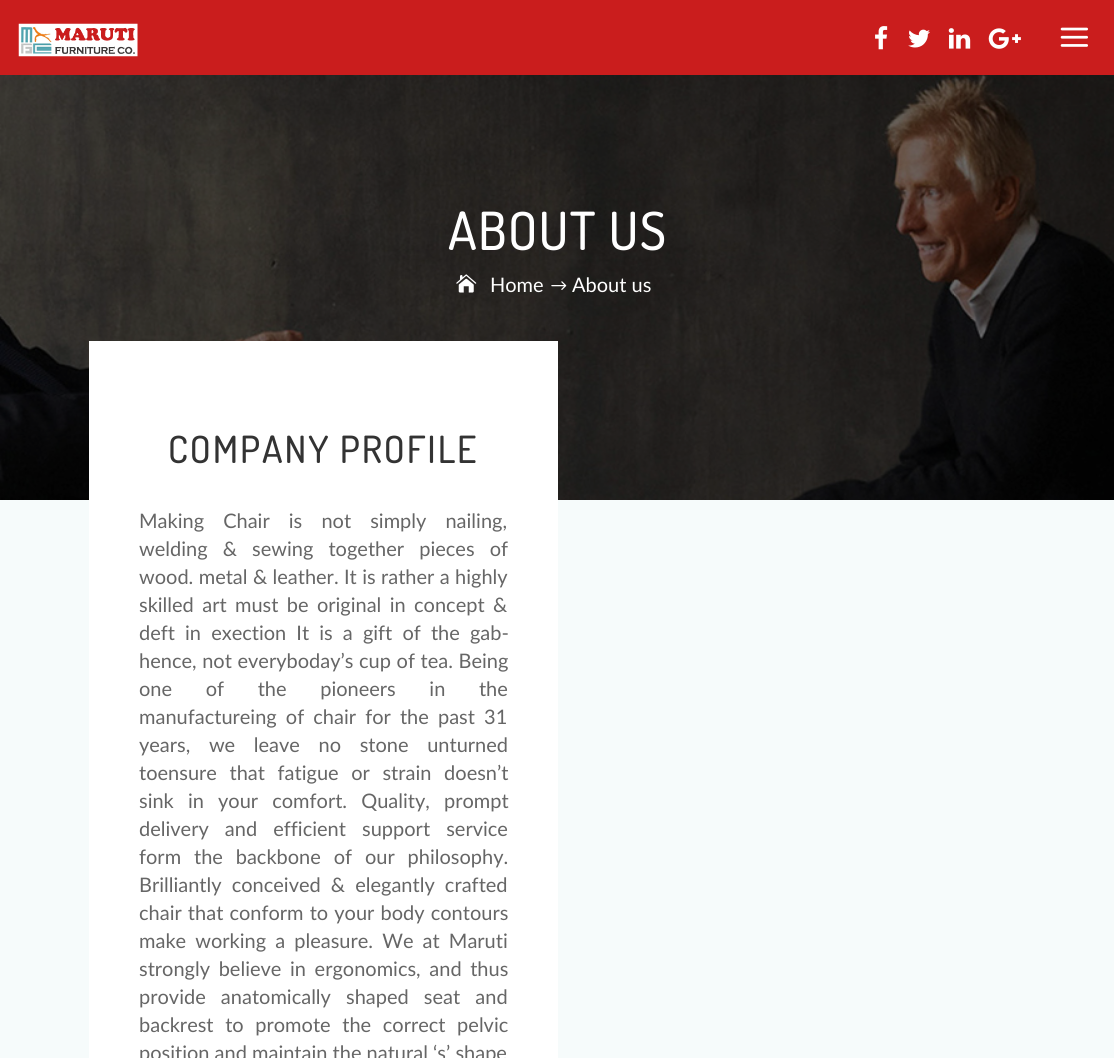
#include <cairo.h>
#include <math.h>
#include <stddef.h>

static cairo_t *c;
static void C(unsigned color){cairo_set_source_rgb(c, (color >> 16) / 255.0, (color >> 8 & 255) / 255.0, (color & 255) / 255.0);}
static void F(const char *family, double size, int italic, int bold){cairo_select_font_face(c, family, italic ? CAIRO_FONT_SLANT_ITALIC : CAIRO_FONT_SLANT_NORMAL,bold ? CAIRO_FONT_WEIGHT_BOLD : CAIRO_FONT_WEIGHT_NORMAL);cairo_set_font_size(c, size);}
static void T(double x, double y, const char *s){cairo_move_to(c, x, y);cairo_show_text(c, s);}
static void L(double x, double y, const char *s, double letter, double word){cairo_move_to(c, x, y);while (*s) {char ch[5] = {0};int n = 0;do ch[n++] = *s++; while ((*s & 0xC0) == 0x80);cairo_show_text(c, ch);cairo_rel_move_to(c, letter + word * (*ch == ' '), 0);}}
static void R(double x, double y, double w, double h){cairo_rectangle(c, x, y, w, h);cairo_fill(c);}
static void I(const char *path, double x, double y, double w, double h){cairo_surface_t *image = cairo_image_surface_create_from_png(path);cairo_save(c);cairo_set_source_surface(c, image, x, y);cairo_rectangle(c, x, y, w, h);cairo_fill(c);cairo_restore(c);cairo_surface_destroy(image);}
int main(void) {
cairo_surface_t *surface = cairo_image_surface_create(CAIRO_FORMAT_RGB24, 1114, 1058);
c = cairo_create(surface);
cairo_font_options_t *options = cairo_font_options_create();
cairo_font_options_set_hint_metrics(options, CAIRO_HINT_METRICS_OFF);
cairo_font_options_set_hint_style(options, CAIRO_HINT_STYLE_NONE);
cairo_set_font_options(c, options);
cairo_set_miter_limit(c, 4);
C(0xf6fbfb);
cairo_paint(c);
C(0xca1d1d);
R(0,0,1114,75);
I("1.png",18,23,120,34);
I("2.png",1060,27,28,20);
I("3.png",875,26,13,24);
I("4.png",908,29,22,19);
I("5.png",948,28,23,21);
I("6.png",988,28,33,21);
I("7.png",0,75,1114,425);
F("Dosis Medium",52.5,0,0);
C(0xffffff);
L(448,250,"ABOUT US",1.25,0);
I("8.png",456,274,21,19);
F("Lato",20,0,0);
T(490,292,"Home");
I("9.png",551,281,16,9);
T(572,292,"About us");
R(89,341,469,717);
F("Dosis Medium",37.5,0,0);
C(0x333333);
L(168,463,"COMPANY PROFILE",1.9,0);
F("Lato",20,0,0);
C(0x666666);
L(139,528,"Making Chair is not simply nailing,",0,14);
L(139,556,"welding & sewing together pieces of",0,10);
L(139,584,"wood. metal & leather. It is rather a highly",0,.25);
L(139,612,"skilled art must be original in concept &",0,3.25);
L(139,640,"deft in exection It is a gift of the gab-",0,5);
L(139,668,"hence, not everyboday’s cup of tea. Being",0,.5);
L(139,696,"one of the pioneers in the",0,28.5);
L(139,724,"manufactureing of chair for the past 31",0,4);
L(139,752,"years, we leave no stone unturned",0,13.5);
L(139,780,"toensure that fatigue or strain doesn’t",0,7.5);
L(139,808,"sink in your comfort. Quality, prompt",0,9);
L(139,836,"delivery and efficient support service",0,11);
L(139,864,"form the backbone of our philosophy.",0,7.75);
L(139,892,"Brilliantly conceived & elegantly crafted",0,5);
L(139,920,"chair that conform to your body contours",0,1);
L(139,948,"make working a pleasure. We at Maruti",0,4);
L(139,976,"strongly believe in ergonomics, and thus",0,3.5);
L(139,1004,"provide anatomically shaped seat and",0,10);
L(139,1032,"backrest to promote the correct pelvic",0,6.5);
T(139,1060,"position and maintain the natural ‘s’ shape");
cairo_surface_write_to_png(surface, "o.png");
cairo_font_options_destroy(options);
cairo_destroy(c);
cairo_surface_destroy(surface);
return 0;
}
